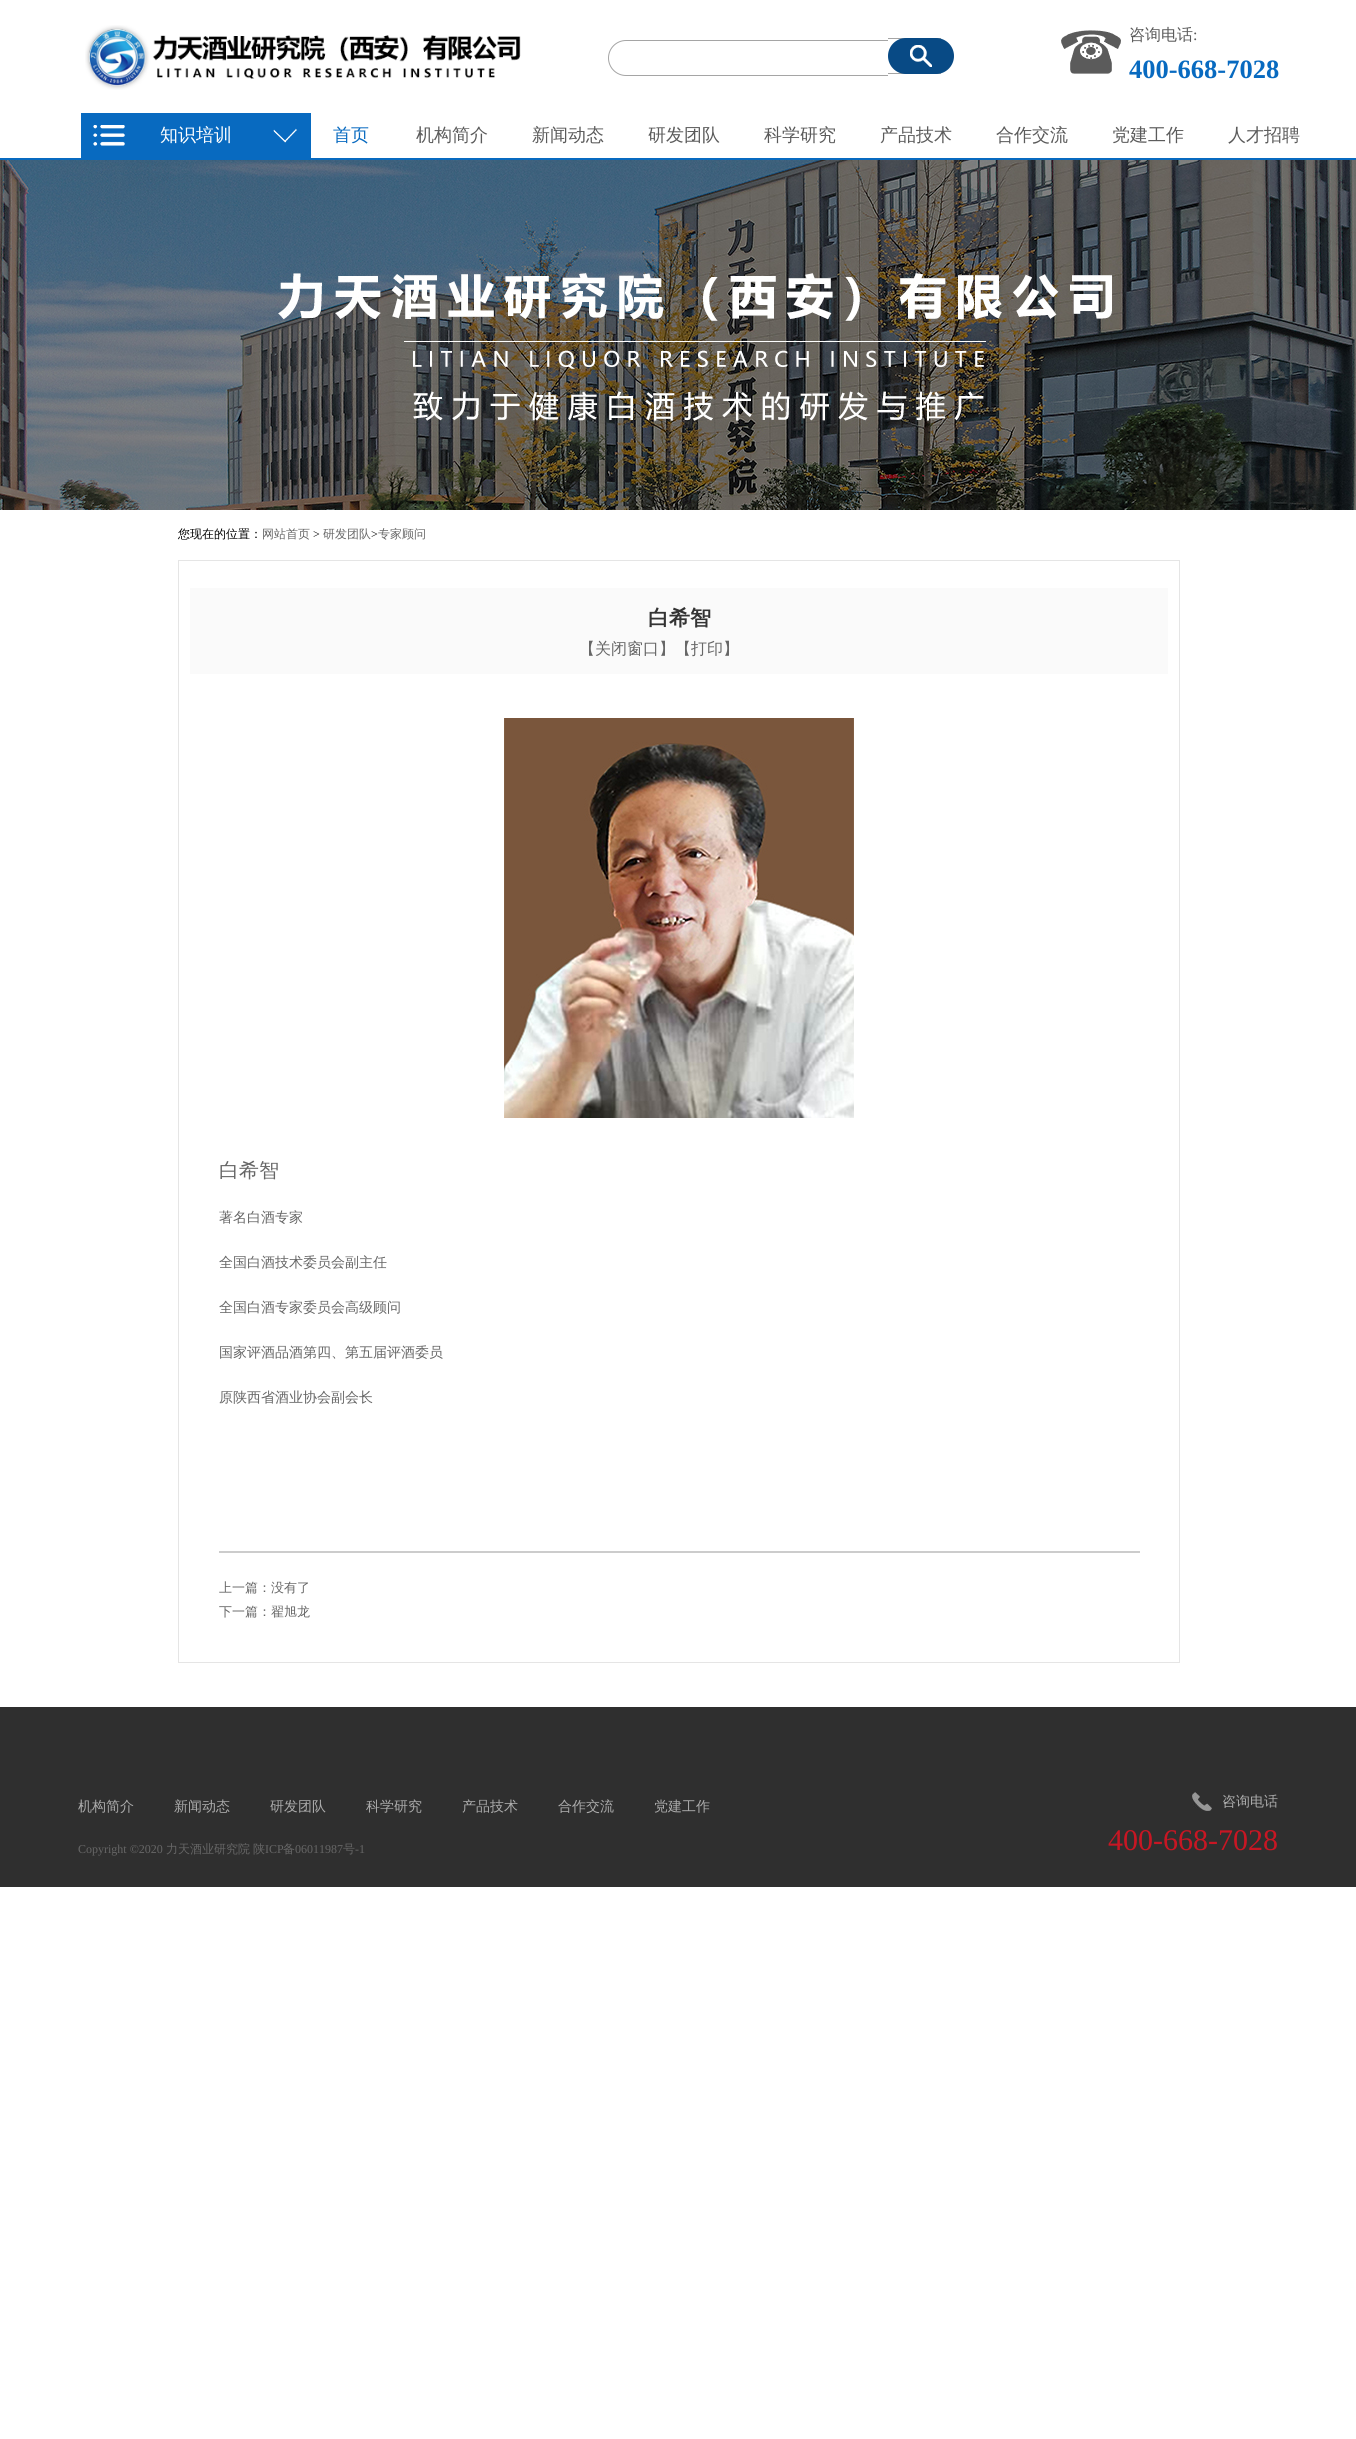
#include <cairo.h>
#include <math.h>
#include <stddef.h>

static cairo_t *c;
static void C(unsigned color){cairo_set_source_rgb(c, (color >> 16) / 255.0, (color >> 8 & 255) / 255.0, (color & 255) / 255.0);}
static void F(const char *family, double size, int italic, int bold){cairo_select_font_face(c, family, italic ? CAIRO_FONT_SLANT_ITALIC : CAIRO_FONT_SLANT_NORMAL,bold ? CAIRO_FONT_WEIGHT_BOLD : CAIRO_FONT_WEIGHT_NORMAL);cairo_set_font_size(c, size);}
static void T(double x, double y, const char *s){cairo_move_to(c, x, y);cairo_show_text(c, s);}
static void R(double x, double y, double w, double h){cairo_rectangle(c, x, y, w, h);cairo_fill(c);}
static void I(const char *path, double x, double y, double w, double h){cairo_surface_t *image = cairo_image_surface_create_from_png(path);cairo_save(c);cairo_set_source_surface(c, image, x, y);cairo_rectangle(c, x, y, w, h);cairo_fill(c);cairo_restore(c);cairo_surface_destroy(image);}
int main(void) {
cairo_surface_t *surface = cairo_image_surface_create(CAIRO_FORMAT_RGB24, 1356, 2439);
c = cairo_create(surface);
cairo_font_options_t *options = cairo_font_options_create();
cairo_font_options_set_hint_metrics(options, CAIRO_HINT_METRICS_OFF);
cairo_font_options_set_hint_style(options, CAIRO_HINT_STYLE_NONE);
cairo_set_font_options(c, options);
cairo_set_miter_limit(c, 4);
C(0xffffff);
cairo_paint(c);
I("1.png",85,25,436,65);
I("2.png",608,40,280,36);
I("3.png",888,38,66,36);
I("4.png",1061,30,60,44);
F("WenQuanYi Zen Hei Medium",16,0,0);
C(0x5b5b5b);
T(1129,40,"咨询电话");
F("Liberation Serif",16,0,0);
T(1193,40,":");
F("Liberation Serif",26.5,0,1);
C(0x086ac0);
T(1129,78,"400-668-7028");
R(0,158,1356,2);
R(81,113,230,45);
I("5.png",93,125,32,21);
I("6.png",273,128,24,15);
F("WenQuanYi Zen Hei Medium",18,0,0);
C(0xffffff);
T(160,141,"知识培训");
C(0x086ac0);
T(333,141,"首页");
C(0x5b5b5b);
T(416,141,"机构简介");
T(532,141,"新闻动态");
T(648,141,"研发团队");
T(764,141,"科学研究");
T(880,141,"产品技术");
T(996,141,"合作交流");
T(1112,141,"党建工作");
T(1228,141,"人才招聘");
I("7.png",0,160,1356,350);
F("WenQuanYi Zen Hei Medium",12,0,0);
C(0x000000);
T(178,538,"您现在的位置：");
C(0x666666);
T(262,538,"网站首页");
F("Liberation Serif",12,0,0);
C(0x000000);
T(313,538,">");
F("WenQuanYi Zen Hei Medium",12,0,0);
C(0x666666);
T(323,538,"研发团队");
F("Liberation Serif",12,0,0);
C(0x000000);
T(371,538,">");
F("WenQuanYi Zen Hei Medium",12,0,0);
C(0x666666);
T(378,538,"专家顾问");
cairo_rectangle(c,178.5,560.5,1001,1102);
C(0xe5e5e5);
cairo_set_line_width(c,1);
cairo_stroke(c);
C(0xfafafa);
R(190,588,978,86);
F("WenQuanYi Zen Hei",21,0,1);
C(0x333333);
T(648,625,"白希智");
F("WenQuanYi Zen Hei Medium",16,0,0);
C(0x666666);
T(579,654,"【关闭窗口】【打印】");
C(0xcccccc);
R(219,1551,921,2);
I("8.png",504,718,350,400);
F("WenQuanYi Zen Hei Medium",20,0,0);
C(0x666666);
T(219,1177,"白希智");
F("WenQuanYi Zen Hei Medium",14,0,0);
T(219,1222,"著名白酒专家");
T(219,1267,"全国白酒技术委员会副主任");
T(219,1312,"全国白酒专家委员会高级顾问");
T(219,1357,"国家评酒品酒第四、第五届评酒委员");
T(219,1402,"原陕西省酒业协会副会长");
F("WenQuanYi Zen Hei Medium",13,0,0);
T(219,1592,"上一篇：没有了");
T(219,1616,"下一篇：翟旭龙");
C(0x2f2f2f);
R(0,1707,1356,180);
F("WenQuanYi Zen Hei Medium",14,0,0);
C(0xacacac);
T(78,1811,"机构简介");
T(174,1811,"新闻动态");
T(270,1811,"研发团队");
T(366,1811,"科学研究");
T(462,1811,"产品技术");
T(558,1811,"合作交流");
T(654,1811,"党建工作");
F("Liberation Serif",12,0,0);
C(0x666666);
T(78,1853,"Copyright ©2020");
F("WenQuanYi Zen Hei Medium",12,0,0);
T(166,1853,"力天酒业研究院");
T(253,1853,"陕");
F("Liberation Serif",12,0,0);
T(265,1853,"ICP");
F("WenQuanYi Zen Hei Medium",12,0,0);
T(283,1853,"备");
F("Liberation Serif",12,0,0);
T(295,1853,"06011987");
F("WenQuanYi Zen Hei Medium",12,0,0);
T(343,1853,"号");
F("Liberation Serif",12,0,0);
T(355,1853,"-1");
I("9.png",1192,1792,20,19);
F("WenQuanYi Zen Hei Medium",14,0,0);
C(0xacacac);
T(1222,1806,"咨询电话");
F("Liberation Serif",30,0,0);
C(0xc81623);
T(1108,1850,"400-668-7028");
cairo_surface_write_to_png(surface, "o.png");
cairo_font_options_destroy(options);
cairo_destroy(c);
cairo_surface_destroy(surface);
return 0;
}
